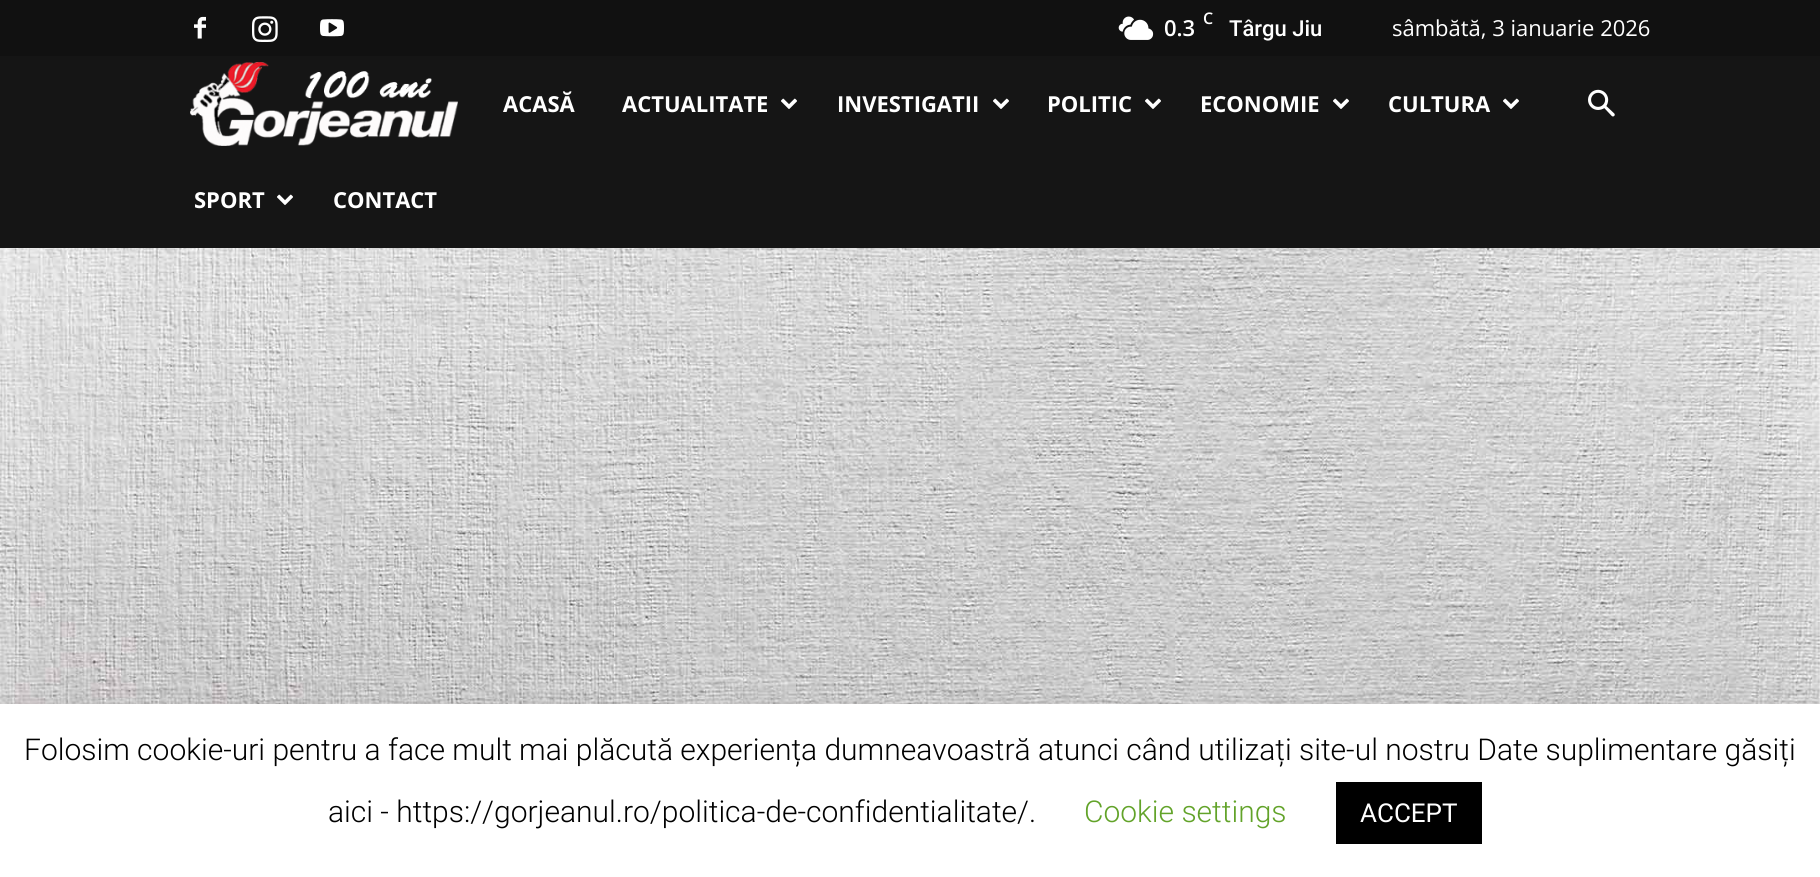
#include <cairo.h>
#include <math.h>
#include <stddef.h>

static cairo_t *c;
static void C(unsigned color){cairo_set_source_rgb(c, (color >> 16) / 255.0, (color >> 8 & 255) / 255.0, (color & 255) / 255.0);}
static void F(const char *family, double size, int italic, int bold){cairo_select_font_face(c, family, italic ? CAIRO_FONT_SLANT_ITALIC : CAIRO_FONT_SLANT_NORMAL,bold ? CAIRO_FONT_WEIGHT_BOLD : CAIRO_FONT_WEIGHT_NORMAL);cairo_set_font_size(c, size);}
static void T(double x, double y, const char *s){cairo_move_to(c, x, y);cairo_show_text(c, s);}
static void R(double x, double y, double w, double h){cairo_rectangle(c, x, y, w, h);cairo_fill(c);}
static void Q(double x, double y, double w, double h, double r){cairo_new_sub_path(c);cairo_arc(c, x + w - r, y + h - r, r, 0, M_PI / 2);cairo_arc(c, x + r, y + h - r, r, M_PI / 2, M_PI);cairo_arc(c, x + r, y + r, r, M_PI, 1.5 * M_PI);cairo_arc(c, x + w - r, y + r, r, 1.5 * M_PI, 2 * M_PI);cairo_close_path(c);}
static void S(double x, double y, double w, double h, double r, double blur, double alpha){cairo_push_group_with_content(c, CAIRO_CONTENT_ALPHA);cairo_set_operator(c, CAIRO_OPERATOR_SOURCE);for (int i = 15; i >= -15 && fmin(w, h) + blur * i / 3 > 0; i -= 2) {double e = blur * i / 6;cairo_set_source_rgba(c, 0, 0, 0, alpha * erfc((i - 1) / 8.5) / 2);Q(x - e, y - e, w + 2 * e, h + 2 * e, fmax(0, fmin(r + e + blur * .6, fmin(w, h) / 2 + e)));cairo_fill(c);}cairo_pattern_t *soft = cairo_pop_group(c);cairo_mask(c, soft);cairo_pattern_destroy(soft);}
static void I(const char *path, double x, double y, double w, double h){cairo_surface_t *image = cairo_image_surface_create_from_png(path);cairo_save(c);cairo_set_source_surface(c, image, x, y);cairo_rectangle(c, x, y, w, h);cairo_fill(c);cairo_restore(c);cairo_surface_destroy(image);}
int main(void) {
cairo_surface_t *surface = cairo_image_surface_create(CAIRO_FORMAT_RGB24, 1820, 877);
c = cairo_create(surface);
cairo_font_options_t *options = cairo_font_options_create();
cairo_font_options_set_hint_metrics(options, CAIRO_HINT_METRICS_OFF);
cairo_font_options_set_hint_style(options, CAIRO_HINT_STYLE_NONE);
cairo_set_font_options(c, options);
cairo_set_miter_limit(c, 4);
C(0xffffff);
cairo_paint(c);
C(0x111111);
R(0,0,1820,56);
I("1.png",194,16,12,23);
I("2.png",252,16,26,26);
I("3.png",320,19,24,18);
I("4.png",1118,16,36,24);
F("Open Sans SemiBold",16,0,0);
C(0xffffff);
T(1203,24,"C");
F("Open Sans SemiBold",22,0,0);
T(1164,36,"0.3");
F("Roboto Medium",22,0,0);
T(1229,36,"Târgu Jiu");
F("Open Sans",22,0,0);
T(1392,36,"sâmbătă, 3 ianuarie 2026");
C(0x151515);
R(0,56,1820,192);
I("5.png",190,62,268,84);
F("Open Sans",22,0,1);
C(0xffffff);
T(503,112,"ACASĂ");
T(622,112,"ACTUALITATE");
I("6.png",781,98,16,11);
T(837,112,"INVESTIGATII");
I("6.png",993,98,16,11);
T(1047,112,"POLITIC");
I("6.png",1145,98,16,11);
T(1200,112,"ECONOMIE");
I("6.png",1333,98,16,11);
T(1388,112,"CULTURA");
I("6.png",1503,98,16,11);
T(194,208,"SPORT");
I("6.png",277,194,16,11);
T(333,208,"CONTACT");
I("7.png",1588,89,27,28);
I("8.png",0,248,1820,456);
C(0xacabab);
S(0,702,1820,174,0,10,.3);
C(0xffffff);
R(0,704,1820,173);
F("Roboto Light",30,0,0);
C(0x000000);
T(24,760,"Folosim cookie-uri pentru a face mult mai plăcută experiența dumneavoastră atunci când utilizați site-ul nostru Date suplimentare găsiți");
T(328,822,"aici - https://gorjeanul.ro/politica-de-confidentialitate/.");
C(0x62a329);
T(1084,822,"Cookie settings");
C(0x000000);
R(1336,782,146,62);
F("Roboto",26,0,0);
C(0xffffff);
T(1360,822,"ACCEPT");
cairo_surface_write_to_png(surface, "o.png");
cairo_font_options_destroy(options);
cairo_destroy(c);
cairo_surface_destroy(surface);
return 0;
}
